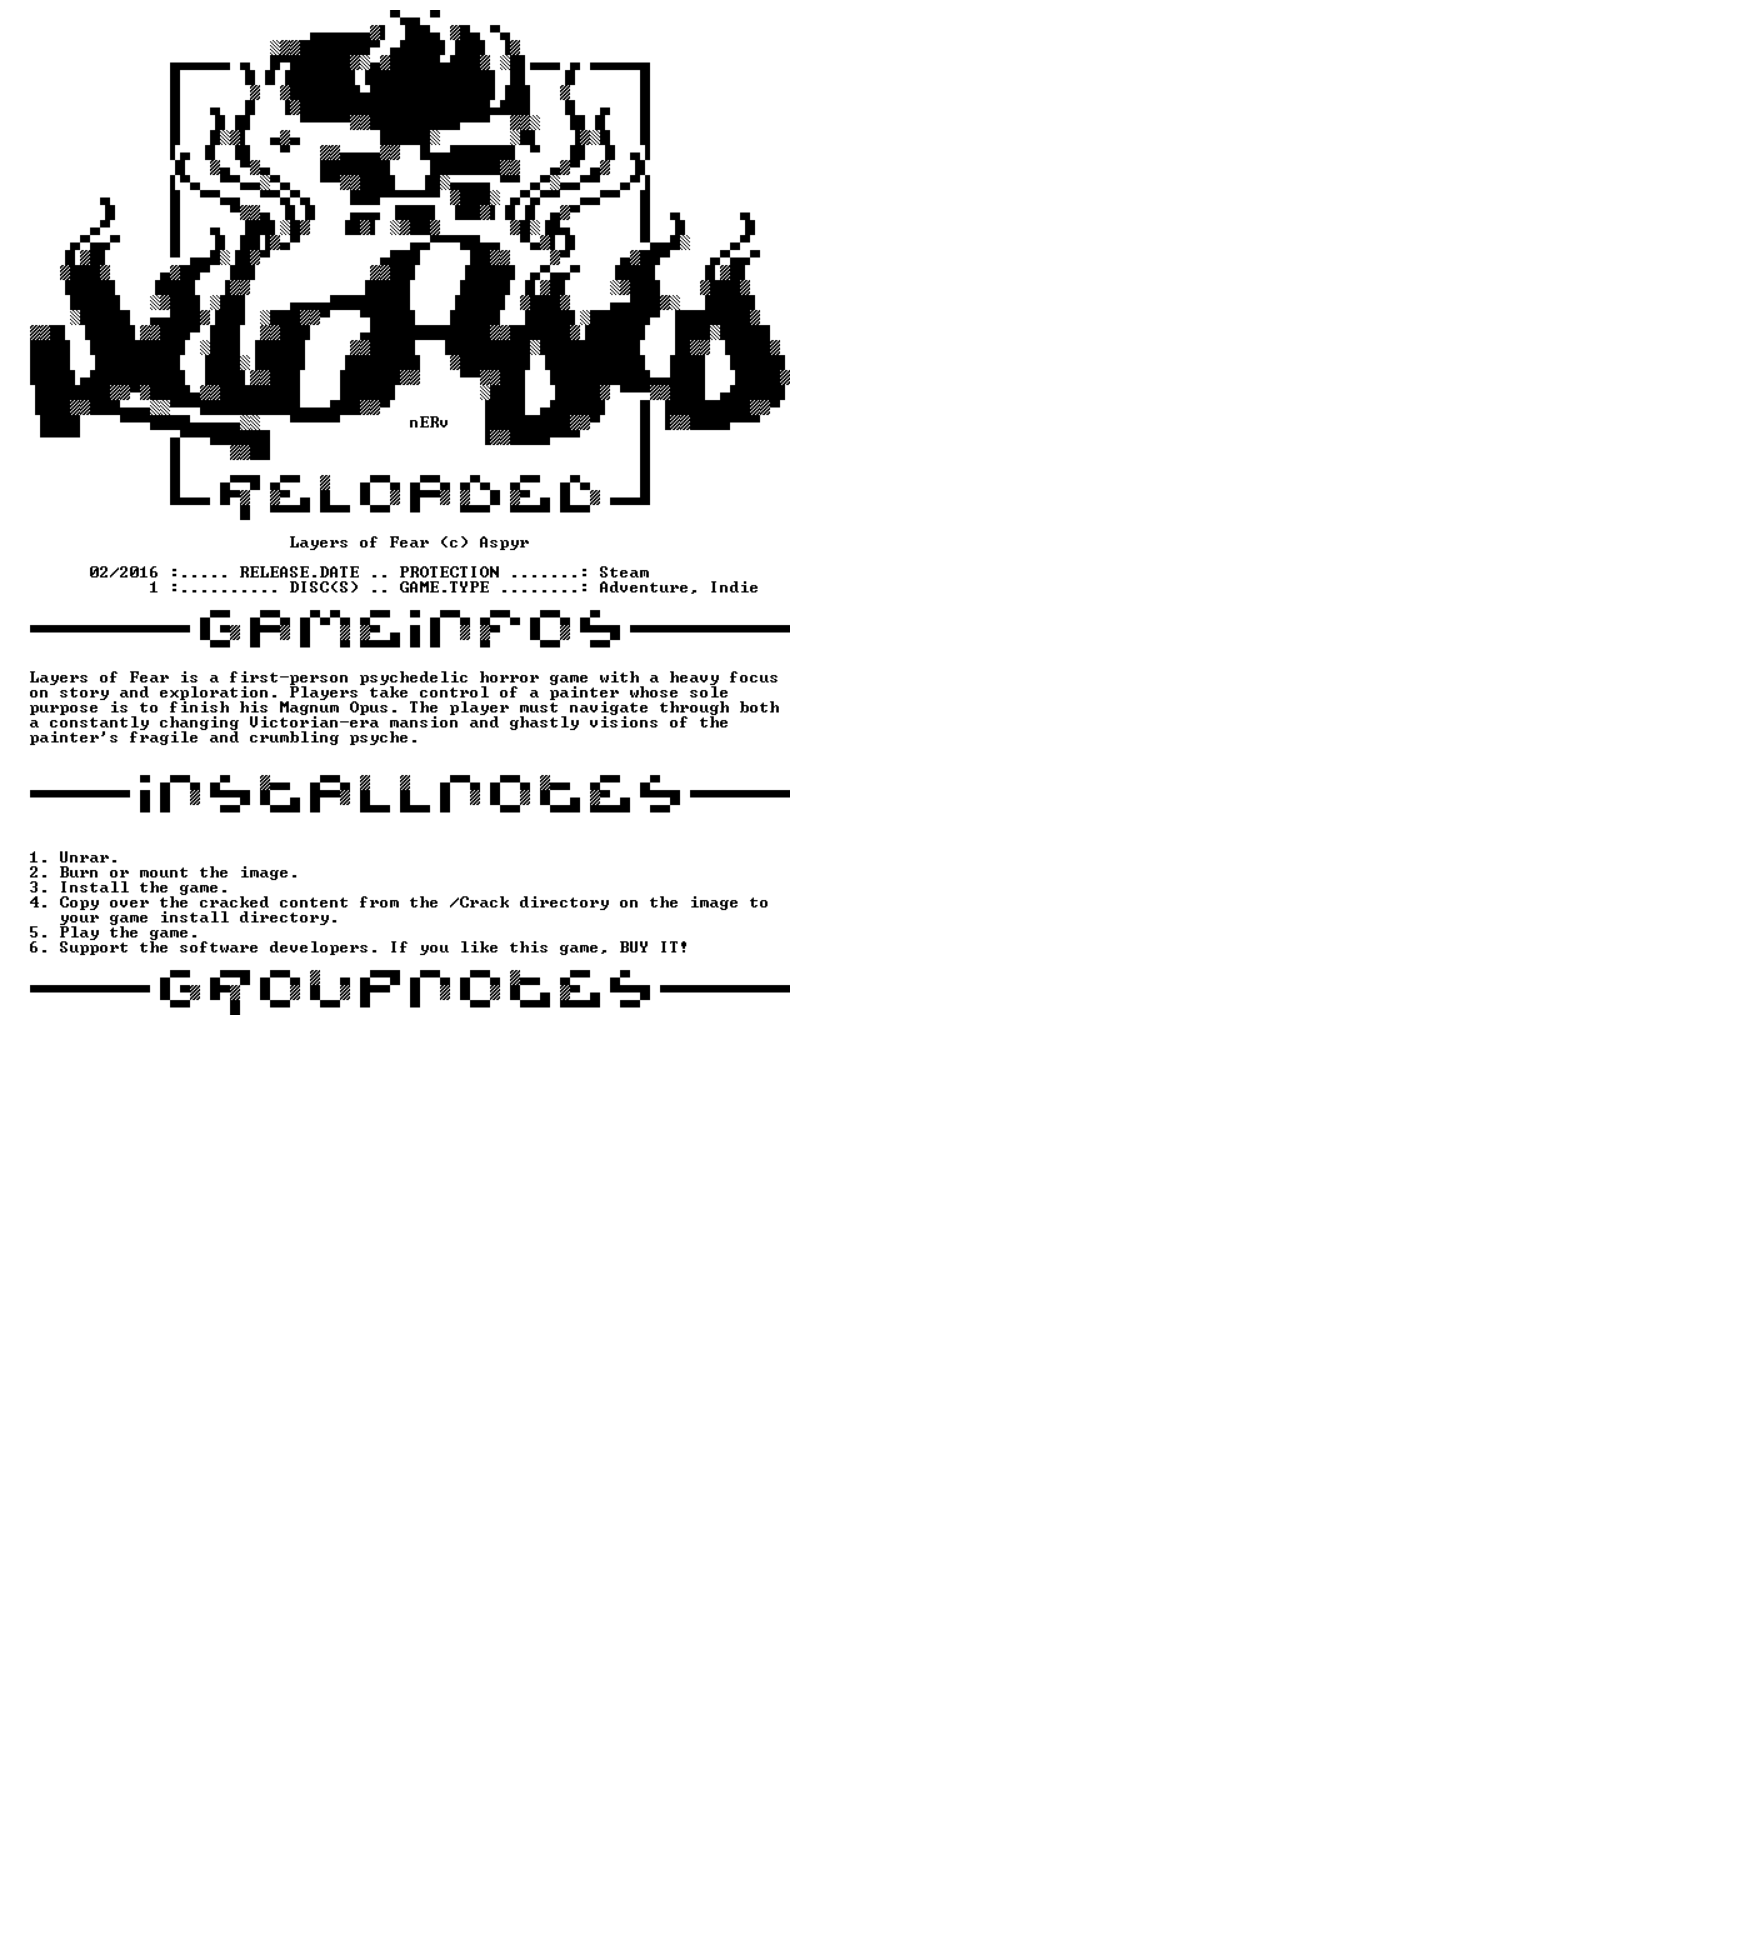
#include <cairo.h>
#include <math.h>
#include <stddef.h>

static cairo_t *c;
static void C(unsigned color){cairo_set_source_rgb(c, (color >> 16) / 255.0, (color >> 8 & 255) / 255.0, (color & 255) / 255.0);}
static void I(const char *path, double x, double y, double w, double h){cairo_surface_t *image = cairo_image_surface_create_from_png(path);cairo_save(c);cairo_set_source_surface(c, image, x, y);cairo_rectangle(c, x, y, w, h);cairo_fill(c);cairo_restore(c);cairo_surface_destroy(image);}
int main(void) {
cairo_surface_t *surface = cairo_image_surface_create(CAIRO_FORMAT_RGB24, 1745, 1952);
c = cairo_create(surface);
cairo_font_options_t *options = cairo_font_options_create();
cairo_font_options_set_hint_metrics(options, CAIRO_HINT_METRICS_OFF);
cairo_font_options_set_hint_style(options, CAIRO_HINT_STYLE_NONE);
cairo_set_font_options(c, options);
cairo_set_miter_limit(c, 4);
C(0xffffff);
cairo_paint(c);
I("1.png",29,10,761,1005);
cairo_surface_write_to_png(surface, "o.png");
cairo_font_options_destroy(options);
cairo_destroy(c);
cairo_surface_destroy(surface);
return 0;
}
